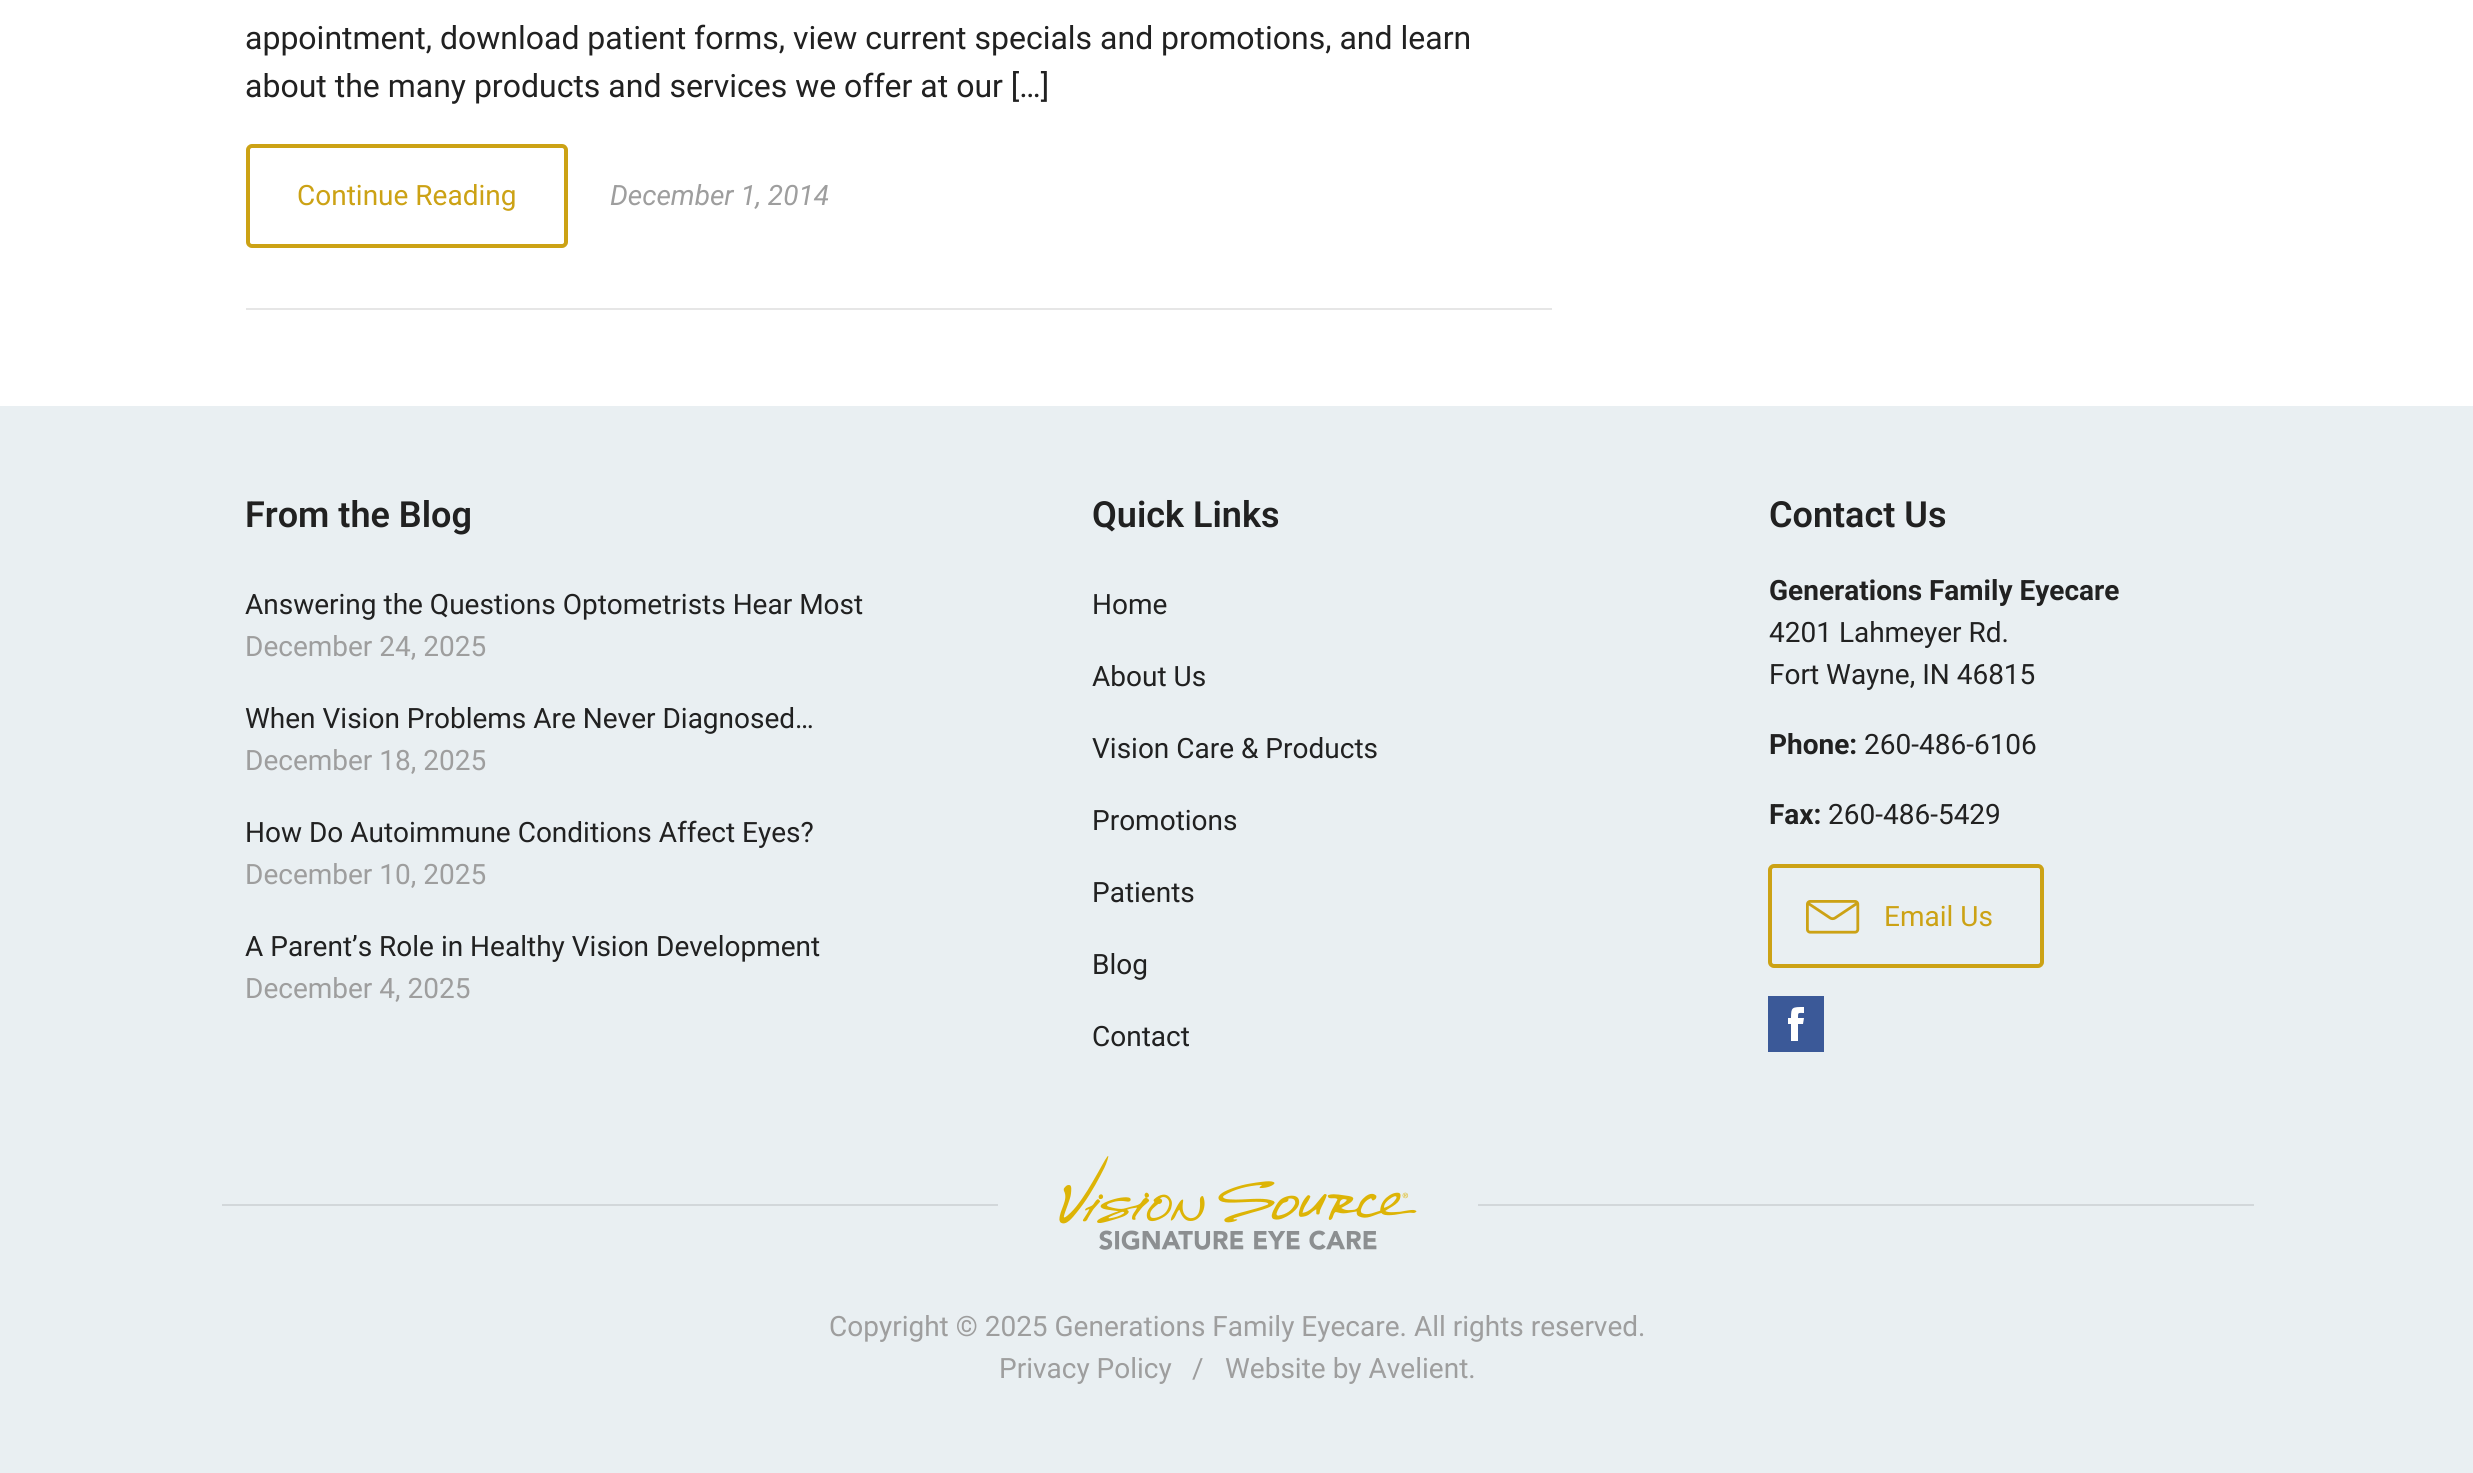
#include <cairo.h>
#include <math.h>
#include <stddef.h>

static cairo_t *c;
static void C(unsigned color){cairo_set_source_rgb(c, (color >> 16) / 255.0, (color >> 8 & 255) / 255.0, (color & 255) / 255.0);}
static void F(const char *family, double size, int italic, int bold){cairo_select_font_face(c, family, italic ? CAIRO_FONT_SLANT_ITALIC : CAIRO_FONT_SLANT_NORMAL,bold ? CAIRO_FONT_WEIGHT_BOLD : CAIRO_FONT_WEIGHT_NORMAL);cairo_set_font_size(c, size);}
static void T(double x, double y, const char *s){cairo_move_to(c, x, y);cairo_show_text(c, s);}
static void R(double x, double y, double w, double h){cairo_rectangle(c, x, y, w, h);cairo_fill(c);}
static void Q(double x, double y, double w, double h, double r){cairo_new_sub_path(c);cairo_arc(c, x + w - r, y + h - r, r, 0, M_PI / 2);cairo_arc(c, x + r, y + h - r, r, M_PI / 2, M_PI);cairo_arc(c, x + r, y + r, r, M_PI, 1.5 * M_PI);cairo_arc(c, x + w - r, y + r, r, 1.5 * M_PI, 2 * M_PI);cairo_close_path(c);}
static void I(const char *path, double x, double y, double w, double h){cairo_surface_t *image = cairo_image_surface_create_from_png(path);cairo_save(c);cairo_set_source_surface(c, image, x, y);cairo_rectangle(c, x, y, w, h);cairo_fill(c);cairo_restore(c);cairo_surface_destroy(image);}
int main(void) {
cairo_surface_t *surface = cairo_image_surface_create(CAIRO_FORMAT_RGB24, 2473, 1473);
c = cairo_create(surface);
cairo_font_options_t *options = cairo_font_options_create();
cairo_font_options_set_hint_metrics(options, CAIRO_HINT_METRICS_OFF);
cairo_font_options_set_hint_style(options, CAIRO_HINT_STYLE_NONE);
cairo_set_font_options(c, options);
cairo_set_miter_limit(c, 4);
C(0xe9eff2);
cairo_paint(c);
C(0xffffff);
R(0,0,2473,406);
C(0xe6e6e6);
R(246,308,1306,2);
F("Roboto",32,0,0);
C(0x212121);
T(245,49,"appointment, download patient forms, view current specials and promotions, and learn");
T(245,97,"about the many products and services we offer at our […]");
Q(248,146,318,100,4);
C(0xcca215);
cairo_set_line_width(c,4);
cairo_stroke(c);
F("Roboto",28,0,0);
T(297,205,"Continue Reading");
F("Roboto",28,1,0);
C(0x9e9e9e);
T(610,205,"December 1, 2014");
F("Roboto SemiBold",36,0,0);
C(0x212121);
T(245,527,"From the Blog");
F("Roboto",28,0,0);
T(245,614,"Answering the Questions Optometrists Hear Most");
C(0x9e9e9e);
T(245,656,"December 24, 2025");
C(0x212121);
T(245,728,"When Vision Problems Are Never Diagnosed…");
C(0x9e9e9e);
T(245,770,"December 18, 2025");
C(0x212121);
T(245,842,"How Do Autoimmune Conditions Affect Eyes?");
C(0x9e9e9e);
T(245,884,"December 10, 2025");
C(0x212121);
T(245,956,"A Parent’s Role in Healthy Vision Development");
C(0x9e9e9e);
T(245,998,"December 4, 2025");
F("Roboto SemiBold",36,0,0);
C(0x212121);
T(1092,527,"Quick Links");
F("Roboto",28,0,0);
T(1092,614,"Home");
T(1092,686,"About Us");
T(1092,758,"Vision Care & Products");
T(1092,830,"Promotions");
T(1092,902,"Patients");
T(1092,974,"Blog");
T(1092,1046,"Contact");
F("Roboto SemiBold",36,0,0);
T(1769,527,"Contact Us");
F("Roboto",28,0,1);
T(1769,600,"Generations Family Eyecare");
F("Roboto",28,0,0);
T(1769,642,"4201 Lahmeyer Rd.");
T(1769,684,"Fort Wayne, IN 46815");
F("Roboto",28,0,1);
T(1769,754,"Phone:");
F("Roboto",28,0,0);
T(1864,754,"260-486-6106");
F("Roboto",28,0,1);
T(1769,824,"Fax:");
F("Roboto",28,0,0);
T(1828,824,"260-486-5429");
Q(1770,866,272,100,4);
C(0xcca215);
cairo_stroke(c);
I("1.png",1806,900,54,34);
T(1884,926,"Email Us");
C(0xffffff);
R(1788,1007,16,34);
C(0x3b5998);
cairo_new_path(c);
cairo_move_to(c,1768,1052);
cairo_line_to(c,1824,1052);
cairo_line_to(c,1824,996);
cairo_line_to(c,1768,996);
cairo_close_path(c);
cairo_move_to(c,1788,1018);
cairo_line_to(c,1791,1018);
cairo_curve_to(c,1791,1007,1792,1007,1804,1007);
cairo_line_to(c,1804,1013);
cairo_curve_to(c,1798,1013,1798,1012,1798,1018);
cairo_line_to(c,1804,1018);
cairo_line_to(c,1803,1024);
cairo_line_to(c,1798,1024);
cairo_line_to(c,1798,1041);
cairo_line_to(c,1791,1041);
cairo_line_to(c,1791,1024);
cairo_line_to(c,1788,1024);
cairo_close_path(c);
cairo_fill(c);
C(0xd2d7da);
R(222,1204,2032,2);
C(0xe9eff2);
R(998,1204,480,2);
I("2.png",1059,1156,358,94);
C(0x9e9e9e);
T(829,1336,"Copyright © 2025 Generations Family Eyecare. All rights reserved.");
T(999,1378,"Privacy Policy");
T(1192,1378,"/");
T(1225,1378,"Website by Avelient.");
cairo_surface_write_to_png(surface, "o.png");
cairo_font_options_destroy(options);
cairo_destroy(c);
cairo_surface_destroy(surface);
return 0;
}
